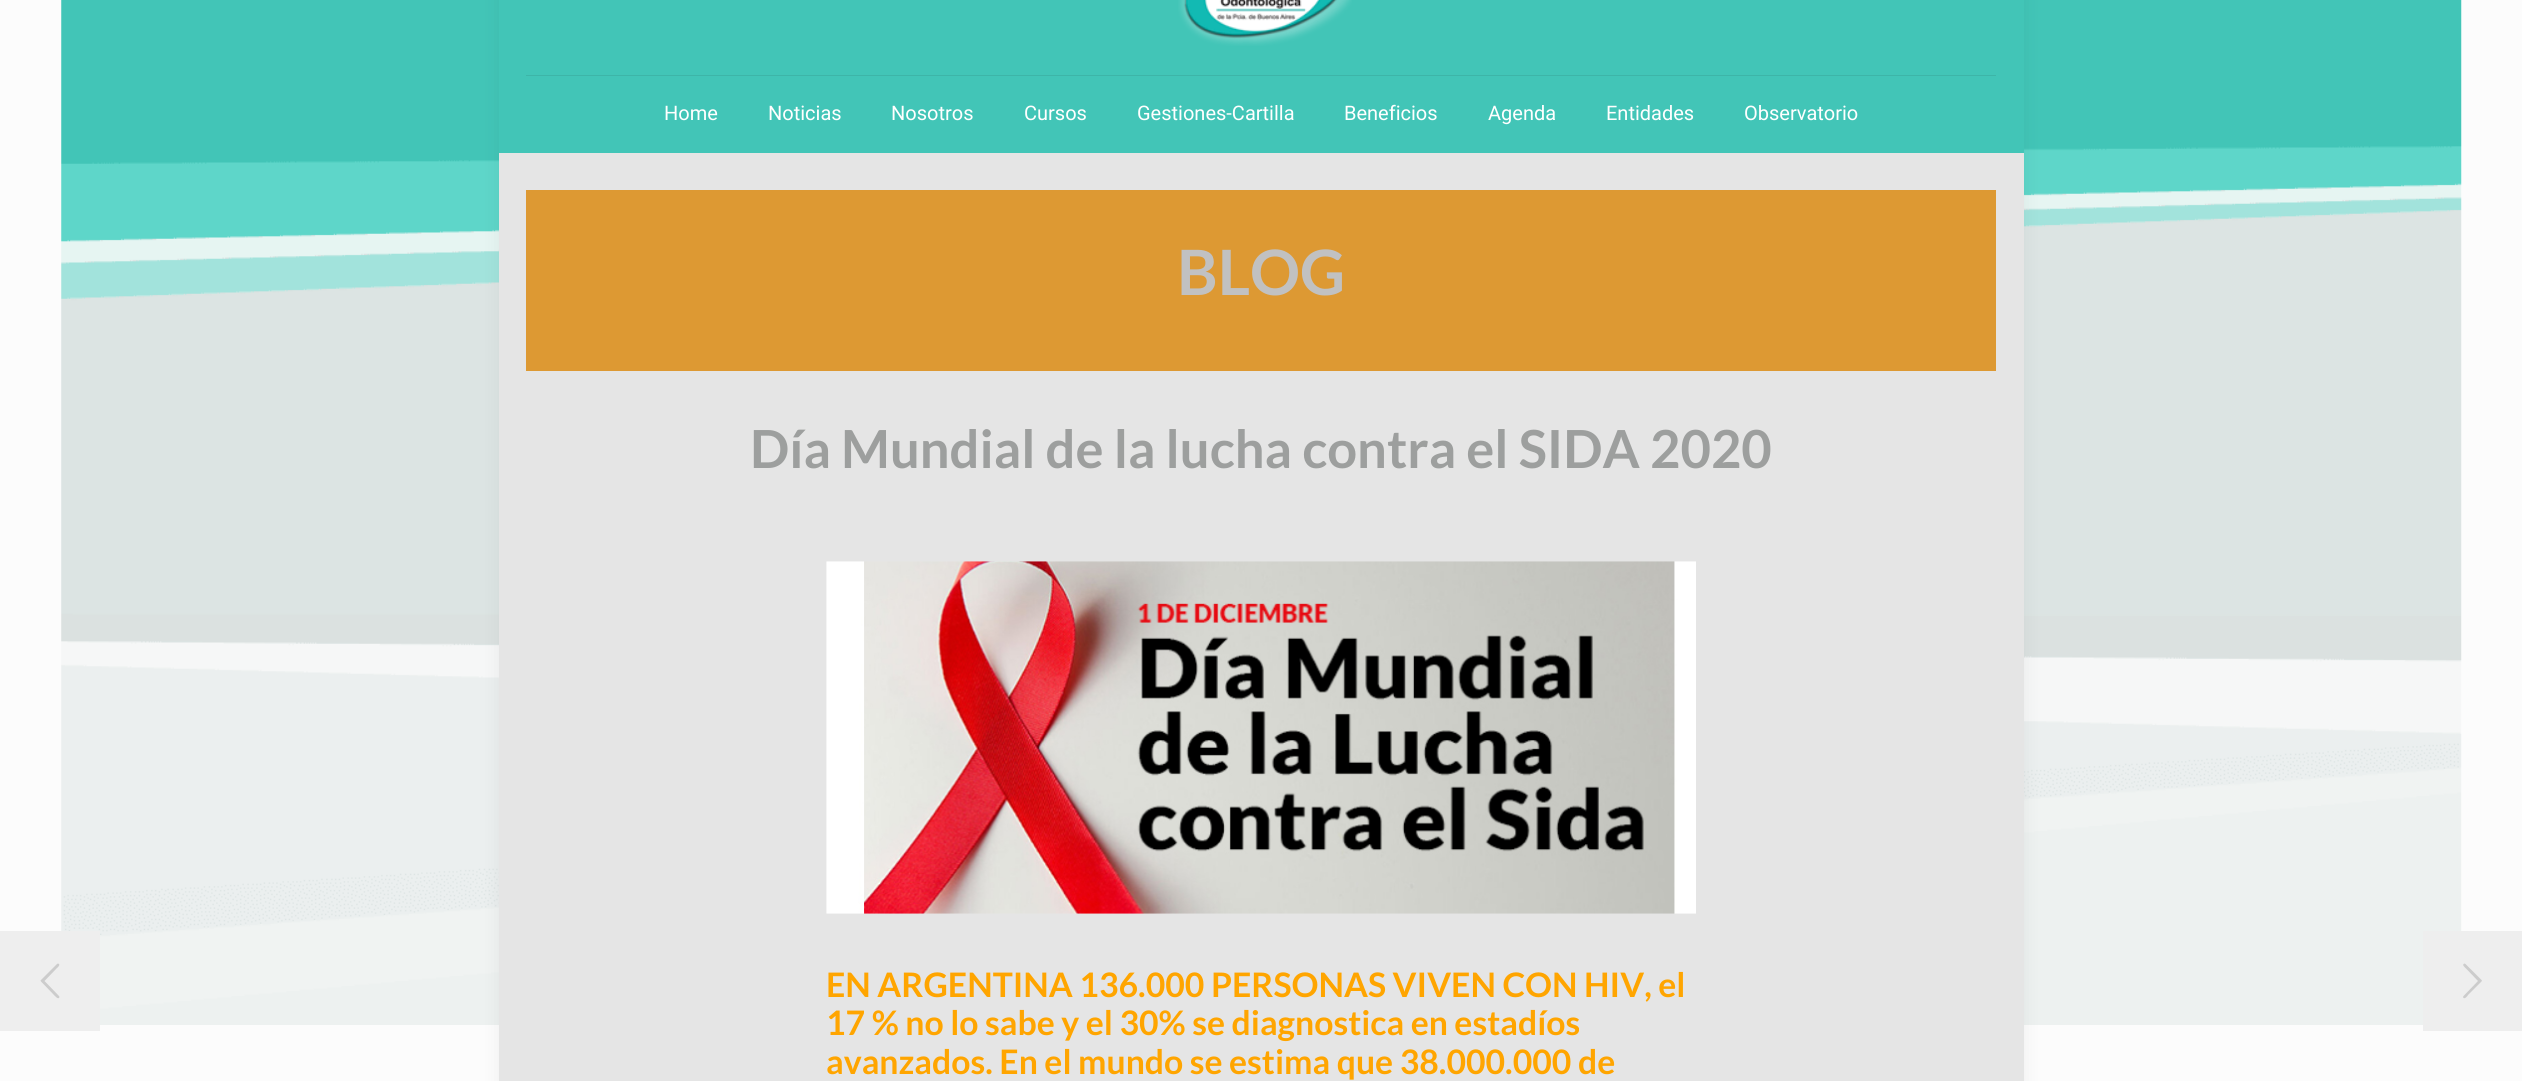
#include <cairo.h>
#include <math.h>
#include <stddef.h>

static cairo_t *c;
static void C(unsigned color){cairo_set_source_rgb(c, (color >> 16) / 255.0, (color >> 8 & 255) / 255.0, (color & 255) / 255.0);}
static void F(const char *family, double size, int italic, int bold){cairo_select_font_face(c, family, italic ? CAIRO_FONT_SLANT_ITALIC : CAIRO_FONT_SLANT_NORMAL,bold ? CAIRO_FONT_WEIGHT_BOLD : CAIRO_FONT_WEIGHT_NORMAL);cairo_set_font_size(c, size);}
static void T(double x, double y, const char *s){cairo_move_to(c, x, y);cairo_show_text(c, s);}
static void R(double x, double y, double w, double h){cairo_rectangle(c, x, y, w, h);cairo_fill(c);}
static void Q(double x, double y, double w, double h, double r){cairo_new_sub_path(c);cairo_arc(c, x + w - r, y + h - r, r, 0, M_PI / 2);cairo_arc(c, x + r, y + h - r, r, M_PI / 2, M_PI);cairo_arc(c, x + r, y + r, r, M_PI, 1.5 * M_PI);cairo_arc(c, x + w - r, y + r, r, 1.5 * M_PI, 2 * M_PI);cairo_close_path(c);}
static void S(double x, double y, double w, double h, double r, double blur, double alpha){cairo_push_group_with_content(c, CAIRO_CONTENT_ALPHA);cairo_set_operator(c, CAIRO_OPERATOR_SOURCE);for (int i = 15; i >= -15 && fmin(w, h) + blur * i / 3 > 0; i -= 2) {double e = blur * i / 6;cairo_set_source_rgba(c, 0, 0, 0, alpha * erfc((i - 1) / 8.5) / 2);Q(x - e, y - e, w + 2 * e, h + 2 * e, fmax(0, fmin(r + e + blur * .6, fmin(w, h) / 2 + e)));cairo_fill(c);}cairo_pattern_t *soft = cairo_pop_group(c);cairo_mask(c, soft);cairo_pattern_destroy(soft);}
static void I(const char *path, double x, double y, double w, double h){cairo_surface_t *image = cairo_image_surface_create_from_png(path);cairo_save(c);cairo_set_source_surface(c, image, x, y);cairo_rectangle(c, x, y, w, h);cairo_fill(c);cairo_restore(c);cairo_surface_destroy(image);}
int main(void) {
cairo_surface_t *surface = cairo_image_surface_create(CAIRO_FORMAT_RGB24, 2522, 1081);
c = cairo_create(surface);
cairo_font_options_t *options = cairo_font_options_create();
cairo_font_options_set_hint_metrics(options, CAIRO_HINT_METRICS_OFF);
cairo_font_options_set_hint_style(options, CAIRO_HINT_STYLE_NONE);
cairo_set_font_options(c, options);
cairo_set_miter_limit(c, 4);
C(0xfcfcfc);
cairo_paint(c);
I("1.png",61,0,2401,1025);
C(0xeeeeee);
R(0,931,100,100);
C(0xcccccc);
cairo_new_path(c);
cairo_move_to(c,59,996);
cairo_line_to(c,59.5,997);
cairo_curve_to(c,58.5,1000.5,54.5,995.5,54,995);
cairo_line_to(c,41,981.5);
cairo_line_to(c,40.5,980.5);
cairo_line_to(c,57,964);
cairo_line_to(c,58,963.5);
cairo_curve_to(c,61.5,964.5,57,968,56.5,968.5);
cairo_line_to(c,44.5,981);
cairo_close_path(c);
cairo_fill(c);
C(0x000000);
S(499,-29,1525,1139,0,9.5,.06);
C(0xe5e5e5);
R(499,153,1525,928);
C(0x42c5b7);
R(499,0,1525,153);
C(0x3db5a8);
R(526,75,1470,1);
I("2.png",1178,0,174,46);
F("Roboto",20,0,0);
C(0xffffff);
T(664,120,"Home");
T(768,120,"Noticias");
T(891,120,"Nosotros");
T(1024,120,"Cursos");
T(1137,120,"Gestiones-Cartilla");
T(1344,120,"Beneficios");
T(1488,120,"Agenda");
T(1606,120,"Entidades");
T(1744,120,"Observatorio");
C(0xdd9933);
R(526,190,1470,181);
F("Lato",62.5,0,1);
C(0xc1c1c1);
T(1177,295,"BLOG");
F("Lato",52.5,0,1);
C(0x9d9f9e);
T(750,468,"Día Mundial de la lucha contra el SIDA 2020");
I("3.png",826,561,870,353);
F("Lato",33.75,0,1);
C(0xffa500);
T(826,997,"EN ARGENTINA 136.000 PERSONAS VIVEN CON HIV, el");
T(826,1035,"17 % no lo sabe y el 30% se diagnostica en estadíos");
T(826,1074,"avanzados. En el mundo se estima que 38.000.000 de");
C(0xeeeeee);
R(2423,931,99,100);
C(0xcccccc);
cairo_new_path(c);
cairo_move_to(c,2463.5,996);
cairo_line_to(c,2478,981);
cairo_line_to(c,2466,968.5);
cairo_curve_to(c,2465.5,968,2461,964.5,2464.5,963.5);
cairo_line_to(c,2465.5,964);
cairo_line_to(c,2482,980.5);
cairo_line_to(c,2481.5,981.5);
cairo_line_to(c,2468,995);
cairo_curve_to(c,2468,995.5,2464,1000.5,2463,997);
cairo_close_path(c);
cairo_fill(c);
cairo_surface_write_to_png(surface, "o.png");
cairo_font_options_destroy(options);
cairo_destroy(c);
cairo_surface_destroy(surface);
return 0;
}
